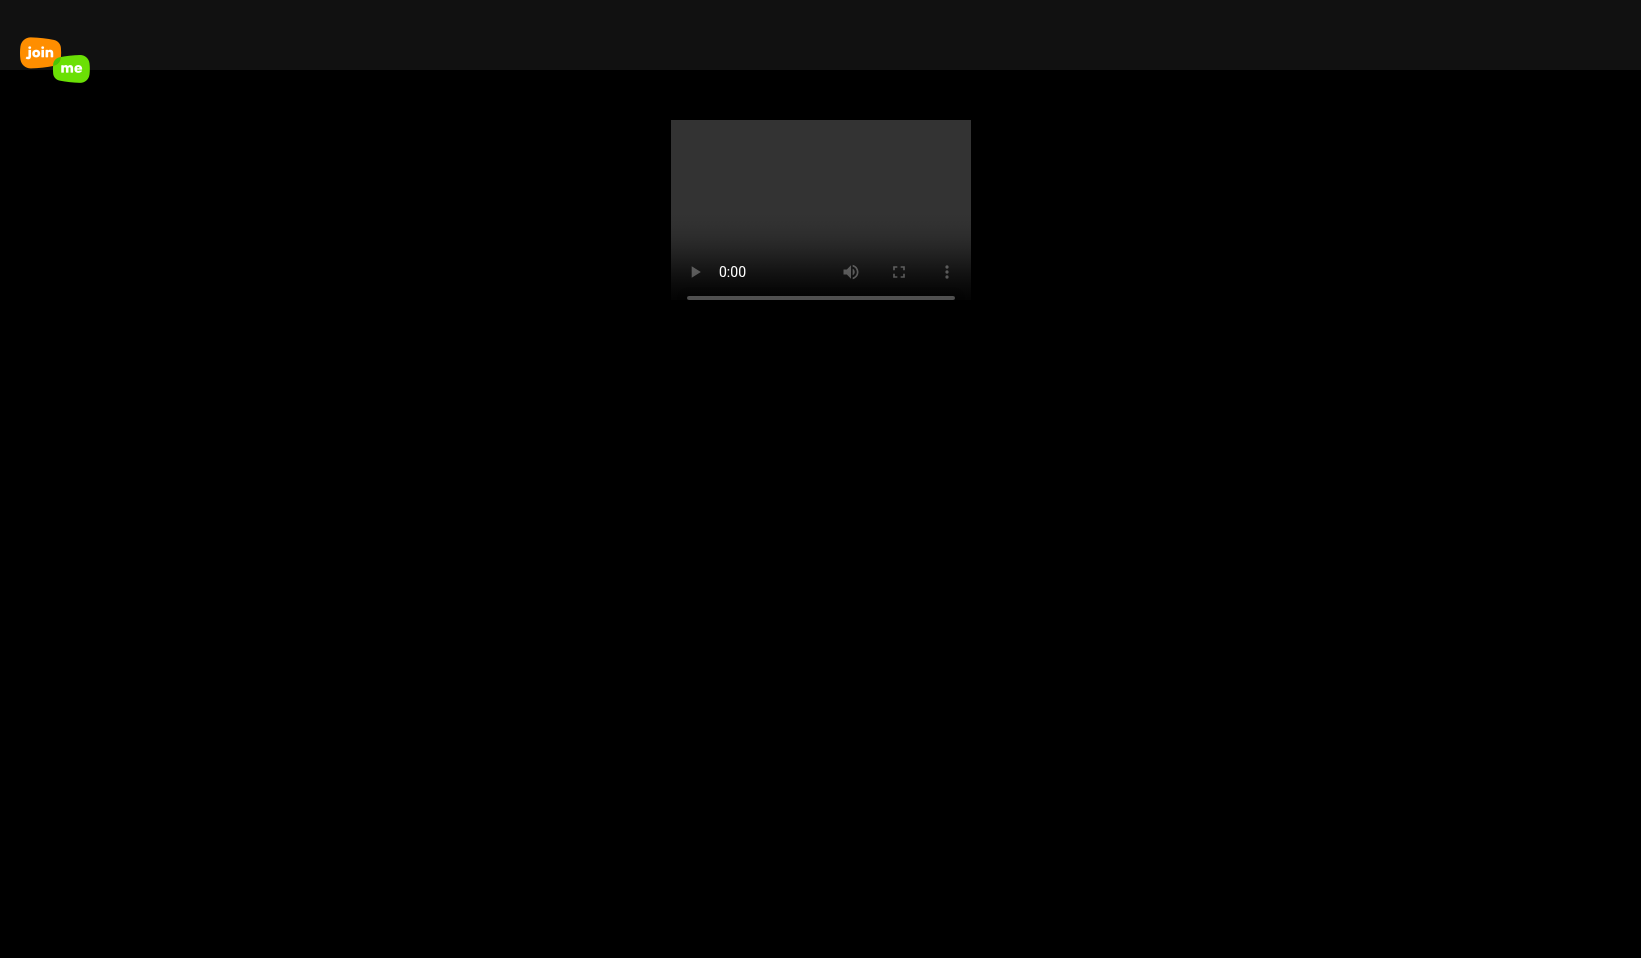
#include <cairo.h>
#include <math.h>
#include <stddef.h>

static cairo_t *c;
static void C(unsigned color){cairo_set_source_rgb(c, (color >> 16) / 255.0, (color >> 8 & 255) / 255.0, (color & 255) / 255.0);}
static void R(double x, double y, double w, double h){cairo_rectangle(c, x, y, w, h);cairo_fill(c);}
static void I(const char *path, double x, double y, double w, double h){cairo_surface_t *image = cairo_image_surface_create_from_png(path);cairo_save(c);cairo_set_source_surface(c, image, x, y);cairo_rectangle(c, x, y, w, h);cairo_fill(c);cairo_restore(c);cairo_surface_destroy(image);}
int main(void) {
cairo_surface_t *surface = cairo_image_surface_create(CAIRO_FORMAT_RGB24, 1641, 958);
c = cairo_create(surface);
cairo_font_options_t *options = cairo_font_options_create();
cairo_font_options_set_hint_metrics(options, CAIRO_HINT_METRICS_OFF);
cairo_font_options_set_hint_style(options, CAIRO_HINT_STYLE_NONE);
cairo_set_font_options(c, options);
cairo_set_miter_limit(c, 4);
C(0x000000);
cairo_paint(c);
C(0x111111);
R(0,0,1641,70);
I("1.png",20,37,70,46);
I("2.png",671,120,300,180);
cairo_surface_write_to_png(surface, "o.png");
cairo_font_options_destroy(options);
cairo_destroy(c);
cairo_surface_destroy(surface);
return 0;
}
